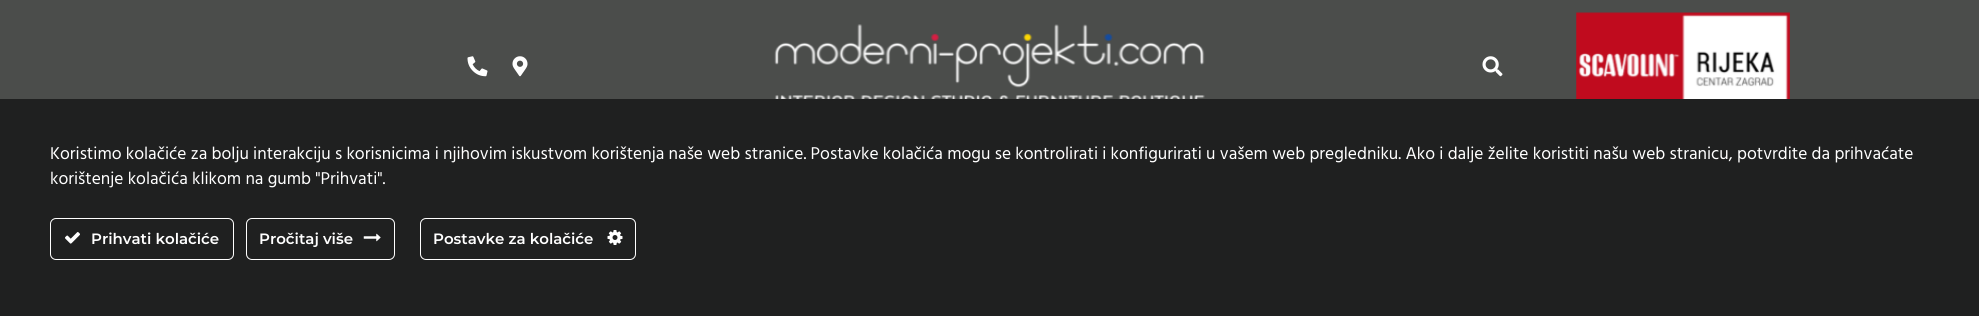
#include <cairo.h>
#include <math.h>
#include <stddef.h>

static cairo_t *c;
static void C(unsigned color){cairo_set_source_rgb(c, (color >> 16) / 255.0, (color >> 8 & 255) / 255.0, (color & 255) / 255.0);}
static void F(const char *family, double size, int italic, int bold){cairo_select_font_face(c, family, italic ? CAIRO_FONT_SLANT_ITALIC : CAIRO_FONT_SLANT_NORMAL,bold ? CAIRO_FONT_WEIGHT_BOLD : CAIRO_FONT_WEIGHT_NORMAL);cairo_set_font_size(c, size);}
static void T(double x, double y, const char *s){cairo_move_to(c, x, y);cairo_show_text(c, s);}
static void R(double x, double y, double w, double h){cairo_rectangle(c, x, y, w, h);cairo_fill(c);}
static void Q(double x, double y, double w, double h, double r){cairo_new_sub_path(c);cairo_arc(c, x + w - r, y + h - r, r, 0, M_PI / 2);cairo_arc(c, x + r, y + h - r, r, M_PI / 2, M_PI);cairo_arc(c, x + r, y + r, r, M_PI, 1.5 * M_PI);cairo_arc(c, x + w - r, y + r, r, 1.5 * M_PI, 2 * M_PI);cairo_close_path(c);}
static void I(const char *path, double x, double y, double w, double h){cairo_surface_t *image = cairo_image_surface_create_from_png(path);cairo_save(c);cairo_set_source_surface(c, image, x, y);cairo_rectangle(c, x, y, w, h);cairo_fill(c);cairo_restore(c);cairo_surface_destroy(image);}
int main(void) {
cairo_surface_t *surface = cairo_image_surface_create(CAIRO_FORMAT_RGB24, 1979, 316);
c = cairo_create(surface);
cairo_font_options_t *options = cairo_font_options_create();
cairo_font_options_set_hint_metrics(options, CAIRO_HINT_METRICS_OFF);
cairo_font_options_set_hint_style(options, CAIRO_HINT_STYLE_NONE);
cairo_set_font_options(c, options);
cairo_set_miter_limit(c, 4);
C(0x4b4d4b);
cairo_paint(c);
I("1.png",467,56,21,21);
I("2.png",512,56,16,21);
I("3.png",774,24,431,75);
I("4.png",1482,56,21,21);
I("5.png",1576,12,214,87);
C(0x1f2020);
R(0,99,1979,217);
F("Hind",17.5,0,0);
C(0xffffff);
T(50,159,"Koristimo kolačiće za bolju interakciju s korisnicima i njihovim iskustvom korištenja naše web stranice. Postavke kolačića mogu se kontrolirati i konfigurirati u vašem web pregledniku. Ako i dalje želite koristiti našu web stranicu, potvrdite da prihvaćate");
T(50,184,"korištenje kolačića klikom na gumb \"Prihvati\".");
Q(50.5,218.5,183,41,5.5);
cairo_set_line_width(c,1);
cairo_stroke(c);
I("6.png",65,232,15,12);
F("Montserrat SemiBold",15,0,0);
T(91,244,"Prihvati kolačiće");
Q(246.5,218.5,148,41,5.5);
cairo_stroke(c);
T(259,244,"Pročitaj više");
I("7.png",363,233,18,9);
Q(420.5,218.5,215,41,5.5);
cairo_stroke(c);
T(433,244,"Postavke za kolačiće");
I("8.png",607,230,16,15);
cairo_surface_write_to_png(surface, "o.png");
cairo_font_options_destroy(options);
cairo_destroy(c);
cairo_surface_destroy(surface);
return 0;
}
